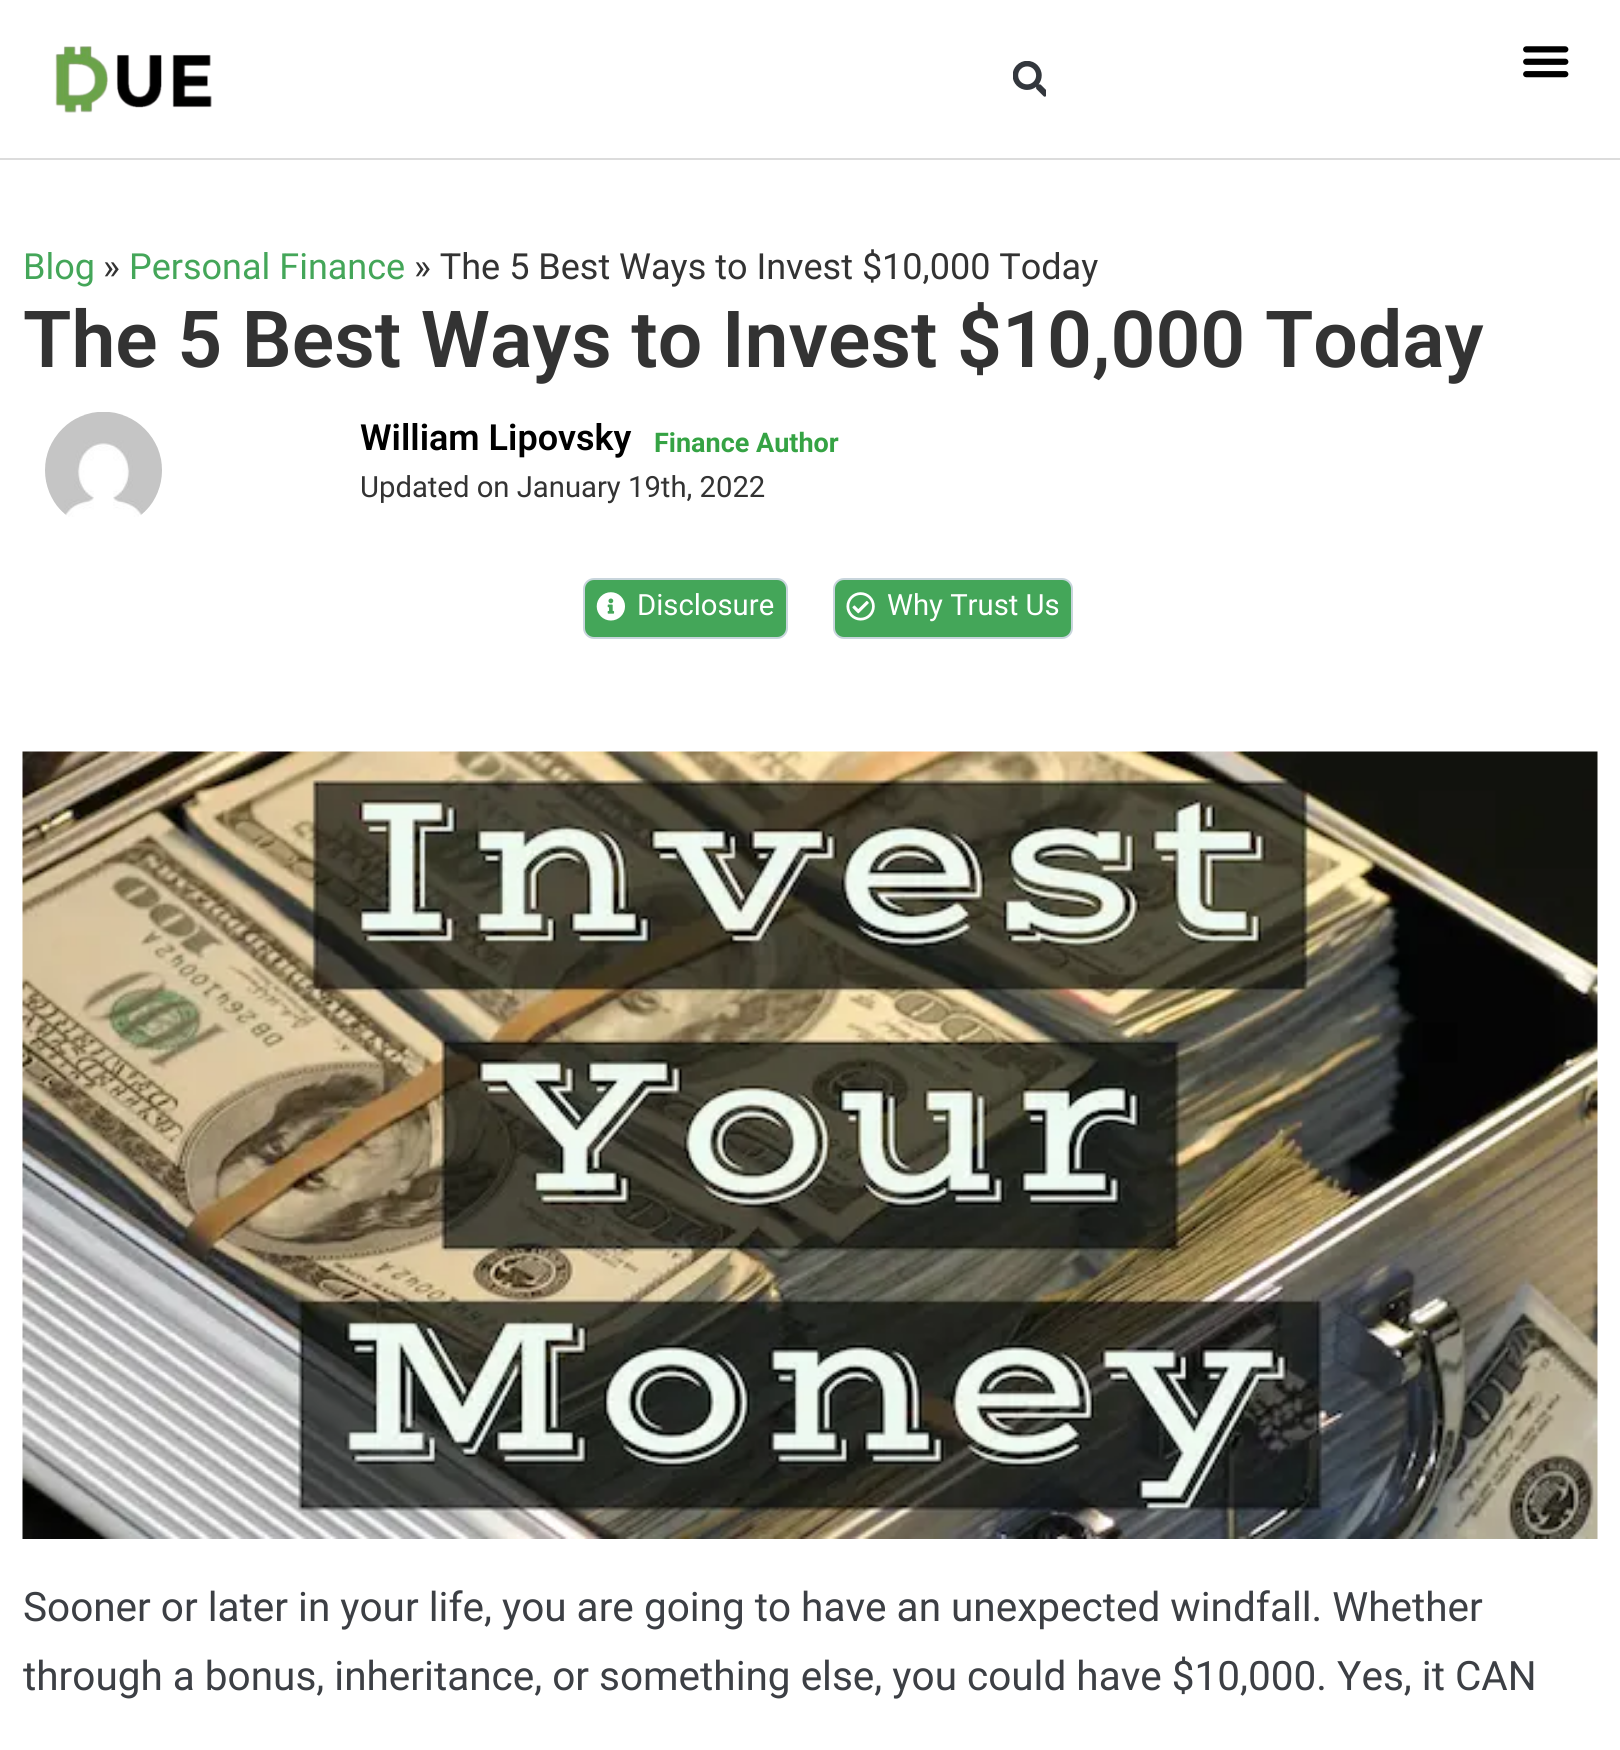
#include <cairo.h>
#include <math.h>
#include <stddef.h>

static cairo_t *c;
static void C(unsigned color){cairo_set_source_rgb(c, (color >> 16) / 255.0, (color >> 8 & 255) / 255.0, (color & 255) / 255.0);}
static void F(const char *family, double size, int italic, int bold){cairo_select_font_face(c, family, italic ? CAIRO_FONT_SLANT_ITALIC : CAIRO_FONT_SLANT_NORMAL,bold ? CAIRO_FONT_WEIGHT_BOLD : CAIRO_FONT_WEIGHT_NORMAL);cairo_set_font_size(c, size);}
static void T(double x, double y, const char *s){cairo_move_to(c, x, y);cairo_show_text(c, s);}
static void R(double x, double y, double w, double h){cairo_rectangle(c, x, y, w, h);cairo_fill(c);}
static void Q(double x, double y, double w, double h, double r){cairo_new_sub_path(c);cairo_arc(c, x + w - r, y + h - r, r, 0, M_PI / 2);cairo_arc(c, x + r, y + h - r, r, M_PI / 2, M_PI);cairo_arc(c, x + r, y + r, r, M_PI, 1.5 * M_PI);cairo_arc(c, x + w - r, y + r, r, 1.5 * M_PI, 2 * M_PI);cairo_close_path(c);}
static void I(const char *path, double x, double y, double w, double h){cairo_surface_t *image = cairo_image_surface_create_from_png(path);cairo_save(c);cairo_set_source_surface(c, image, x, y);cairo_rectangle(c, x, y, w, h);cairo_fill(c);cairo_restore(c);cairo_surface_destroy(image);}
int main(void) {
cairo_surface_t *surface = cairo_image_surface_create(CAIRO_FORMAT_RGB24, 1620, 1750);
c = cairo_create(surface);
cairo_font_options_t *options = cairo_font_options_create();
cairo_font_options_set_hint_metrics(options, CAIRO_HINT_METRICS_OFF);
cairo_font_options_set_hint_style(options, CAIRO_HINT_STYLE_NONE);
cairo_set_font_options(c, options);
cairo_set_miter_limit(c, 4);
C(0xffffff);
cairo_paint(c);
C(0xdcdcdc);
R(0,158,1620,2);
I("1.png",55,46,157,67);
I("2.png",1013,61,33,36);
I("3.png",1523,46,46,32);
F("Roboto",36,0,0);
C(0x44a659);
T(23,279,"Blog");
C(0x333333);
T(103,279,"»");
C(0x44a659);
T(129,279,"Personal Finance");
C(0x333333);
T(414,279,"» The 5 Best Ways to Invest $10,000 Today");
F("Roboto SemiBold",78.75,0,0);
T(23,367,"The 5 Best Ways to Invest $10,000 Today");
I("4.png",45,412,117,105);
F("Roboto SemiBold",36,0,0);
C(0x000000);
T(360,450,"William Lipovsky");
F("Roboto",27,0,1);
C(0x35a344);
T(654,452,"Finance Author");
F("Roboto",29.25,0,0);
C(0x333333);
T(360,497,"Updated on January 19th, 2022");
C(0x44a659);
Q(584,579,203,59,10);
cairo_fill_preserve(c);
C(0xc8d5dc);
cairo_stroke(c);
I("5.png",596,592,29,29);
C(0xffffff);
T(637,615,"Disclosure");
C(0x44a659);
Q(834,579,238,59,10);
cairo_fill_preserve(c);
C(0xc8d5dc);
cairo_stroke(c);
I("6.png",846,592,29,29);
C(0xffffff);
T(887,615,"Why Trust Us");
I("7.png",22,751,1576,788);
F("Roboto",40.5,0,0);
C(0x3c3f44);
T(23,1621,"Sooner or later in your life, you are going to have an unexpected windfall. Whether");
T(23,1690,"through a bonus, inheritance, or something else, you could have $10,000. Yes, it CAN");
cairo_surface_write_to_png(surface, "o.png");
cairo_font_options_destroy(options);
cairo_destroy(c);
cairo_surface_destroy(surface);
return 0;
}
